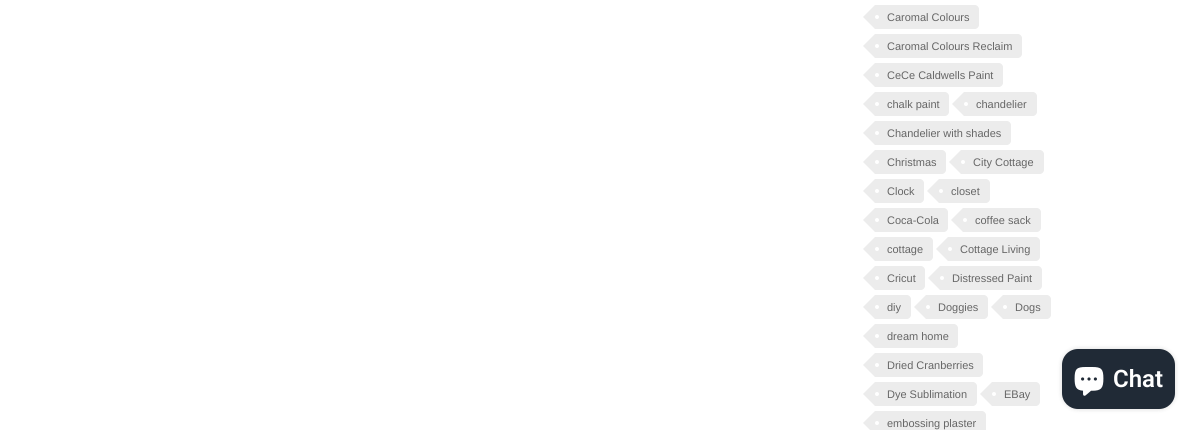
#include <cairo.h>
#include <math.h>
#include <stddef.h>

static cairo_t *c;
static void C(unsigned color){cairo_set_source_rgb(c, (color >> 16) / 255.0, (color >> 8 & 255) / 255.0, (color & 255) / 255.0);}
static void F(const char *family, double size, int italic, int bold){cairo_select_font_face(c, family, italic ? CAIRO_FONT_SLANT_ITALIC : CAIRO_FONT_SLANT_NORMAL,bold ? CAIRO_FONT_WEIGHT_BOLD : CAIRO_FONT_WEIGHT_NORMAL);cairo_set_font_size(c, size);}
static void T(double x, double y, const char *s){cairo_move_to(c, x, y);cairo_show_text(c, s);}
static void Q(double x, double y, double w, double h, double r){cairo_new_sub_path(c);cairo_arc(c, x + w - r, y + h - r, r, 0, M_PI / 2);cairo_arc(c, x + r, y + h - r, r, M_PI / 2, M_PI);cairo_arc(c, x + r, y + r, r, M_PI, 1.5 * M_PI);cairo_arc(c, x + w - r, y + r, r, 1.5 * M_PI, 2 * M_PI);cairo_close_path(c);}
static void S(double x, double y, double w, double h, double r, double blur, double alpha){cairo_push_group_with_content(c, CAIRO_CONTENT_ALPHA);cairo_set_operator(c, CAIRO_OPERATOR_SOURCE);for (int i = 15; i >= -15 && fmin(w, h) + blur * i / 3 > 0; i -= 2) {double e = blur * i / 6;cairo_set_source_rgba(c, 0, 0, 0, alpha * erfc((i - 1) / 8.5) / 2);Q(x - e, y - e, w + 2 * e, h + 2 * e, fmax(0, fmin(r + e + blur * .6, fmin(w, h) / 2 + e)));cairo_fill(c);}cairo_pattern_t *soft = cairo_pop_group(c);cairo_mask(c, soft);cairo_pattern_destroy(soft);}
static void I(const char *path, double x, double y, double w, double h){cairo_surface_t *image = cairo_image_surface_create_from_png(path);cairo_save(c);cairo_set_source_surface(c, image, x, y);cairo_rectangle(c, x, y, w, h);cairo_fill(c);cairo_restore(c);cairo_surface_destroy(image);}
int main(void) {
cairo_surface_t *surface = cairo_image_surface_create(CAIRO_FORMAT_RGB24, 1197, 430);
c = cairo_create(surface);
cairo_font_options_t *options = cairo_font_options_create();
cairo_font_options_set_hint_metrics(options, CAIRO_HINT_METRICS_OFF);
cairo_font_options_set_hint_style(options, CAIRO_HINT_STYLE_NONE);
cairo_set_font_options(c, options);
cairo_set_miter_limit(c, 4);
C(0xffffff);
cairo_paint(c);
C(0xececec);
cairo_new_path(c);
cairo_move_to(c,875,5);
cairo_line_to(c,975,5);
cairo_curve_to(c,977,5,979,7,979,9);
cairo_line_to(c,979,25);
cairo_curve_to(c,979,27,977,29,975,29);
cairo_line_to(c,875,29);
cairo_close_path(c);
cairo_fill(c);
cairo_new_path(c);
cairo_move_to(c,875,5);
cairo_line_to(c,875,29);
cairo_line_to(c,863,17);
cairo_close_path(c);
cairo_fill(c);
C(0xffffff);
cairo_arc(c,877,17,2,0,2 * M_PI);
cairo_fill(c);
F("Liberation Sans",11,0,0);
C(0x666666);
T(887,21,"Caromal Colours");
C(0xececec);
cairo_new_path(c);
cairo_move_to(c,875,34);
cairo_line_to(c,1018,34);
cairo_curve_to(c,1020,34,1022,36,1022,38);
cairo_line_to(c,1022,54);
cairo_curve_to(c,1022,56,1020,58,1018,58);
cairo_line_to(c,875,58);
cairo_close_path(c);
cairo_fill(c);
cairo_new_path(c);
cairo_move_to(c,875,34);
cairo_line_to(c,875,58);
cairo_line_to(c,863,46);
cairo_close_path(c);
cairo_fill(c);
C(0xffffff);
cairo_arc(c,877,46,2,0,2 * M_PI);
cairo_fill(c);
C(0x666666);
T(887,50,"Caromal Colours Reclaim");
C(0xececec);
cairo_new_path(c);
cairo_move_to(c,875,63);
cairo_line_to(c,999,63);
cairo_curve_to(c,1001,63,1003,65,1003,67);
cairo_line_to(c,1003,83);
cairo_curve_to(c,1003,85,1001,87,999,87);
cairo_line_to(c,875,87);
cairo_close_path(c);
cairo_fill(c);
cairo_new_path(c);
cairo_move_to(c,875,63);
cairo_line_to(c,875,87);
cairo_line_to(c,863,75);
cairo_close_path(c);
cairo_fill(c);
C(0xffffff);
cairo_arc(c,877,75,2,0,2 * M_PI);
cairo_fill(c);
C(0x666666);
T(887,79,"CeCe Caldwells Paint");
C(0xececec);
cairo_new_path(c);
cairo_move_to(c,875,92);
cairo_line_to(c,945,92);
cairo_curve_to(c,947,92,949,94,949,96);
cairo_line_to(c,949,112);
cairo_curve_to(c,949,114,947,116,945,116);
cairo_line_to(c,875,116);
cairo_close_path(c);
cairo_fill(c);
cairo_new_path(c);
cairo_move_to(c,875,92);
cairo_line_to(c,875,116);
cairo_line_to(c,863,104);
cairo_close_path(c);
cairo_fill(c);
C(0xffffff);
cairo_arc(c,877,104,2,0,2 * M_PI);
cairo_fill(c);
C(0x666666);
T(887,108,"chalk paint");
C(0xececec);
cairo_new_path(c);
cairo_move_to(c,964,92);
cairo_line_to(c,1033,92);
cairo_curve_to(c,1035,92,1037,94,1037,96);
cairo_line_to(c,1037,112);
cairo_curve_to(c,1037,114,1035,116,1033,116);
cairo_line_to(c,964,116);
cairo_close_path(c);
cairo_fill(c);
cairo_new_path(c);
cairo_move_to(c,964,92);
cairo_line_to(c,964,116);
cairo_line_to(c,952,104);
cairo_close_path(c);
cairo_fill(c);
C(0xffffff);
cairo_arc(c,966,104,2,0,2 * M_PI);
cairo_fill(c);
C(0x666666);
T(976,108,"chandelier");
C(0xececec);
cairo_new_path(c);
cairo_move_to(c,875,121);
cairo_line_to(c,1007,121);
cairo_curve_to(c,1009,121,1011,123,1011,125);
cairo_line_to(c,1011,141);
cairo_curve_to(c,1011,143,1009,145,1007,145);
cairo_line_to(c,875,145);
cairo_close_path(c);
cairo_fill(c);
cairo_new_path(c);
cairo_move_to(c,875,121);
cairo_line_to(c,875,145);
cairo_line_to(c,863,133);
cairo_close_path(c);
cairo_fill(c);
C(0xffffff);
cairo_arc(c,877,133,2,0,2 * M_PI);
cairo_fill(c);
C(0x666666);
T(887,137,"Chandelier with shades");
C(0xececec);
cairo_new_path(c);
cairo_move_to(c,875,150);
cairo_line_to(c,942,150);
cairo_curve_to(c,944,150,946,152,946,154);
cairo_line_to(c,946,170);
cairo_curve_to(c,946,172,944,174,942,174);
cairo_line_to(c,875,174);
cairo_close_path(c);
cairo_fill(c);
cairo_new_path(c);
cairo_move_to(c,875,150);
cairo_line_to(c,875,174);
cairo_line_to(c,863,162);
cairo_close_path(c);
cairo_fill(c);
C(0xffffff);
cairo_arc(c,877,162,2,0,2 * M_PI);
cairo_fill(c);
C(0x666666);
T(887,166,"Christmas");
C(0xececec);
cairo_new_path(c);
cairo_move_to(c,961,150);
cairo_line_to(c,1040,150);
cairo_curve_to(c,1042,150,1044,152,1044,154);
cairo_line_to(c,1044,170);
cairo_curve_to(c,1044,172,1042,174,1040,174);
cairo_line_to(c,961,174);
cairo_close_path(c);
cairo_fill(c);
cairo_new_path(c);
cairo_move_to(c,961,150);
cairo_line_to(c,961,174);
cairo_line_to(c,949,162);
cairo_close_path(c);
cairo_fill(c);
C(0xffffff);
cairo_arc(c,963,162,2,0,2 * M_PI);
cairo_fill(c);
C(0x666666);
T(973,166,"City Cottage");
C(0xececec);
cairo_new_path(c);
cairo_move_to(c,875,179);
cairo_line_to(c,920,179);
cairo_curve_to(c,922,179,924,181,924,183);
cairo_line_to(c,924,199);
cairo_curve_to(c,924,201,922,203,920,203);
cairo_line_to(c,875,203);
cairo_close_path(c);
cairo_fill(c);
cairo_new_path(c);
cairo_move_to(c,875,179);
cairo_line_to(c,875,203);
cairo_line_to(c,863,191);
cairo_close_path(c);
cairo_fill(c);
C(0xffffff);
cairo_arc(c,877,191,2,0,2 * M_PI);
cairo_fill(c);
C(0x666666);
T(887,195,"Clock");
C(0xececec);
cairo_new_path(c);
cairo_move_to(c,939,179);
cairo_line_to(c,986,179);
cairo_curve_to(c,988,179,990,181,990,183);
cairo_line_to(c,990,199);
cairo_curve_to(c,990,201,988,203,986,203);
cairo_line_to(c,939,203);
cairo_close_path(c);
cairo_fill(c);
cairo_new_path(c);
cairo_move_to(c,939,179);
cairo_line_to(c,939,203);
cairo_line_to(c,927,191);
cairo_close_path(c);
cairo_fill(c);
C(0xffffff);
cairo_arc(c,941,191,2,0,2 * M_PI);
cairo_fill(c);
C(0x666666);
T(951,195,"closet");
C(0xececec);
cairo_new_path(c);
cairo_move_to(c,875,208);
cairo_line_to(c,944,208);
cairo_curve_to(c,946,208,948,210,948,212);
cairo_line_to(c,948,228);
cairo_curve_to(c,948,230,946,232,944,232);
cairo_line_to(c,875,232);
cairo_close_path(c);
cairo_fill(c);
cairo_new_path(c);
cairo_move_to(c,875,208);
cairo_line_to(c,875,232);
cairo_line_to(c,863,220);
cairo_close_path(c);
cairo_fill(c);
C(0xffffff);
cairo_arc(c,877,220,2,0,2 * M_PI);
cairo_fill(c);
C(0x666666);
T(887,224,"Coca-Cola");
C(0xececec);
cairo_new_path(c);
cairo_move_to(c,963,208);
cairo_line_to(c,1037,208);
cairo_curve_to(c,1039,208,1041,210,1041,212);
cairo_line_to(c,1041,228);
cairo_curve_to(c,1041,230,1039,232,1037,232);
cairo_line_to(c,963,232);
cairo_close_path(c);
cairo_fill(c);
cairo_new_path(c);
cairo_move_to(c,963,208);
cairo_line_to(c,963,232);
cairo_line_to(c,951,220);
cairo_close_path(c);
cairo_fill(c);
C(0xffffff);
cairo_arc(c,965,220,2,0,2 * M_PI);
cairo_fill(c);
C(0x666666);
T(975,224,"coffee sack");
C(0xececec);
cairo_new_path(c);
cairo_move_to(c,875,237);
cairo_line_to(c,929,237);
cairo_curve_to(c,931,237,933,239,933,241);
cairo_line_to(c,933,257);
cairo_curve_to(c,933,259,931,261,929,261);
cairo_line_to(c,875,261);
cairo_close_path(c);
cairo_fill(c);
cairo_new_path(c);
cairo_move_to(c,875,237);
cairo_line_to(c,875,261);
cairo_line_to(c,863,249);
cairo_close_path(c);
cairo_fill(c);
C(0xffffff);
cairo_arc(c,877,249,2,0,2 * M_PI);
cairo_fill(c);
C(0x666666);
T(887,253,"cottage");
C(0xececec);
cairo_new_path(c);
cairo_move_to(c,948,237);
cairo_line_to(c,1036,237);
cairo_curve_to(c,1038,237,1040,239,1040,241);
cairo_line_to(c,1040,257);
cairo_curve_to(c,1040,259,1038,261,1036,261);
cairo_line_to(c,948,261);
cairo_close_path(c);
cairo_fill(c);
cairo_new_path(c);
cairo_move_to(c,948,237);
cairo_line_to(c,948,261);
cairo_line_to(c,936,249);
cairo_close_path(c);
cairo_fill(c);
C(0xffffff);
cairo_arc(c,950,249,2,0,2 * M_PI);
cairo_fill(c);
C(0x666666);
T(960,253,"Cottage Living");
C(0xececec);
cairo_new_path(c);
cairo_move_to(c,875,266);
cairo_line_to(c,921,266);
cairo_curve_to(c,923,266,925,268,925,270);
cairo_line_to(c,925,286);
cairo_curve_to(c,925,288,923,290,921,290);
cairo_line_to(c,875,290);
cairo_close_path(c);
cairo_fill(c);
cairo_new_path(c);
cairo_move_to(c,875,266);
cairo_line_to(c,875,290);
cairo_line_to(c,863,278);
cairo_close_path(c);
cairo_fill(c);
C(0xffffff);
cairo_arc(c,877,278,2,0,2 * M_PI);
cairo_fill(c);
C(0x666666);
T(887,282,"Cricut");
C(0xececec);
cairo_new_path(c);
cairo_move_to(c,940,266);
cairo_line_to(c,1038,266);
cairo_curve_to(c,1040,266,1042,268,1042,270);
cairo_line_to(c,1042,286);
cairo_curve_to(c,1042,288,1040,290,1038,290);
cairo_line_to(c,940,290);
cairo_close_path(c);
cairo_fill(c);
cairo_new_path(c);
cairo_move_to(c,940,266);
cairo_line_to(c,940,290);
cairo_line_to(c,928,278);
cairo_close_path(c);
cairo_fill(c);
C(0xffffff);
cairo_arc(c,942,278,2,0,2 * M_PI);
cairo_fill(c);
C(0x666666);
T(952,282,"Distressed Paint");
C(0xececec);
cairo_new_path(c);
cairo_move_to(c,875,295);
cairo_line_to(c,907,295);
cairo_curve_to(c,909,295,911,297,911,299);
cairo_line_to(c,911,315);
cairo_curve_to(c,911,317,909,319,907,319);
cairo_line_to(c,875,319);
cairo_close_path(c);
cairo_fill(c);
cairo_new_path(c);
cairo_move_to(c,875,295);
cairo_line_to(c,875,319);
cairo_line_to(c,863,307);
cairo_close_path(c);
cairo_fill(c);
C(0xffffff);
cairo_arc(c,877,307,2,0,2 * M_PI);
cairo_fill(c);
C(0x666666);
T(887,311,"diy");
C(0xececec);
cairo_new_path(c);
cairo_move_to(c,926,295);
cairo_line_to(c,984,295);
cairo_curve_to(c,986,295,988,297,988,299);
cairo_line_to(c,988,315);
cairo_curve_to(c,988,317,986,319,984,319);
cairo_line_to(c,926,319);
cairo_close_path(c);
cairo_fill(c);
cairo_new_path(c);
cairo_move_to(c,926,295);
cairo_line_to(c,926,319);
cairo_line_to(c,914,307);
cairo_close_path(c);
cairo_fill(c);
C(0xffffff);
cairo_arc(c,928,307,2,0,2 * M_PI);
cairo_fill(c);
C(0x666666);
T(938,311,"Doggies");
C(0xececec);
cairo_new_path(c);
cairo_move_to(c,1003,295);
cairo_line_to(c,1047,295);
cairo_curve_to(c,1049,295,1051,297,1051,299);
cairo_line_to(c,1051,315);
cairo_curve_to(c,1051,317,1049,319,1047,319);
cairo_line_to(c,1003,319);
cairo_close_path(c);
cairo_fill(c);
cairo_new_path(c);
cairo_move_to(c,1003,295);
cairo_line_to(c,1003,319);
cairo_line_to(c,991,307);
cairo_close_path(c);
cairo_fill(c);
C(0xffffff);
cairo_arc(c,1005,307,2,0,2 * M_PI);
cairo_fill(c);
C(0x666666);
T(1015,311,"Dogs");
C(0xececec);
cairo_new_path(c);
cairo_move_to(c,875,324);
cairo_line_to(c,954,324);
cairo_curve_to(c,956,324,958,326,958,328);
cairo_line_to(c,958,344);
cairo_curve_to(c,958,346,956,348,954,348);
cairo_line_to(c,875,348);
cairo_close_path(c);
cairo_fill(c);
cairo_new_path(c);
cairo_move_to(c,875,324);
cairo_line_to(c,875,348);
cairo_line_to(c,863,336);
cairo_close_path(c);
cairo_fill(c);
C(0xffffff);
cairo_arc(c,877,336,2,0,2 * M_PI);
cairo_fill(c);
C(0x666666);
T(887,340,"dream home");
C(0xececec);
cairo_new_path(c);
cairo_move_to(c,875,353);
cairo_line_to(c,979,353);
cairo_curve_to(c,981,353,983,355,983,357);
cairo_line_to(c,983,373);
cairo_curve_to(c,983,375,981,377,979,377);
cairo_line_to(c,875,377);
cairo_close_path(c);
cairo_fill(c);
cairo_new_path(c);
cairo_move_to(c,875,353);
cairo_line_to(c,875,377);
cairo_line_to(c,863,365);
cairo_close_path(c);
cairo_fill(c);
C(0xffffff);
cairo_arc(c,877,365,2,0,2 * M_PI);
cairo_fill(c);
C(0x666666);
T(887,369,"Dried Cranberries");
C(0xececec);
cairo_new_path(c);
cairo_move_to(c,875,382);
cairo_line_to(c,973,382);
cairo_curve_to(c,975,382,977,384,977,386);
cairo_line_to(c,977,402);
cairo_curve_to(c,977,404,975,406,973,406);
cairo_line_to(c,875,406);
cairo_close_path(c);
cairo_fill(c);
cairo_new_path(c);
cairo_move_to(c,875,382);
cairo_line_to(c,875,406);
cairo_line_to(c,863,394);
cairo_close_path(c);
cairo_fill(c);
C(0xffffff);
cairo_arc(c,877,394,2,0,2 * M_PI);
cairo_fill(c);
C(0x666666);
T(887,398,"Dye Sublimation");
C(0xececec);
cairo_new_path(c);
cairo_move_to(c,992,382);
cairo_line_to(c,1036,382);
cairo_curve_to(c,1038,382,1040,384,1040,386);
cairo_line_to(c,1040,402);
cairo_curve_to(c,1040,404,1038,406,1036,406);
cairo_line_to(c,992,406);
cairo_close_path(c);
cairo_fill(c);
cairo_new_path(c);
cairo_move_to(c,992,382);
cairo_line_to(c,992,406);
cairo_line_to(c,980,394);
cairo_close_path(c);
cairo_fill(c);
C(0xffffff);
cairo_arc(c,994,394,2,0,2 * M_PI);
cairo_fill(c);
C(0x666666);
T(1004,398,"EBay");
C(0xececec);
cairo_new_path(c);
cairo_move_to(c,875,411);
cairo_line_to(c,982,411);
cairo_curve_to(c,984,411,986,413,986,415);
cairo_line_to(c,986,430);
cairo_curve_to(c,986,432,984,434,982,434);
cairo_line_to(c,875,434);
cairo_close_path(c);
cairo_fill(c);
cairo_new_path(c);
cairo_move_to(c,875,411);
cairo_line_to(c,875,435);
cairo_line_to(c,863,423);
cairo_close_path(c);
cairo_fill(c);
C(0xffffff);
cairo_arc(c,877,423,2,0,2 * M_PI);
cairo_fill(c);
C(0x666666);
T(887,427,"embossing plaster");
C(0x000000);
S(1062,349,113,60,16,2.5,.15);
C(0x202a36);
Q(1062,349,113,60,16);
cairo_fill(c);
I("1.png",1074,367,30,29);
F("Roboto SemiBold",24,0,0);
C(0xffffff);
T(1113,387,"Chat");
cairo_surface_write_to_png(surface, "o.png");
cairo_font_options_destroy(options);
cairo_destroy(c);
cairo_surface_destroy(surface);
return 0;
}
